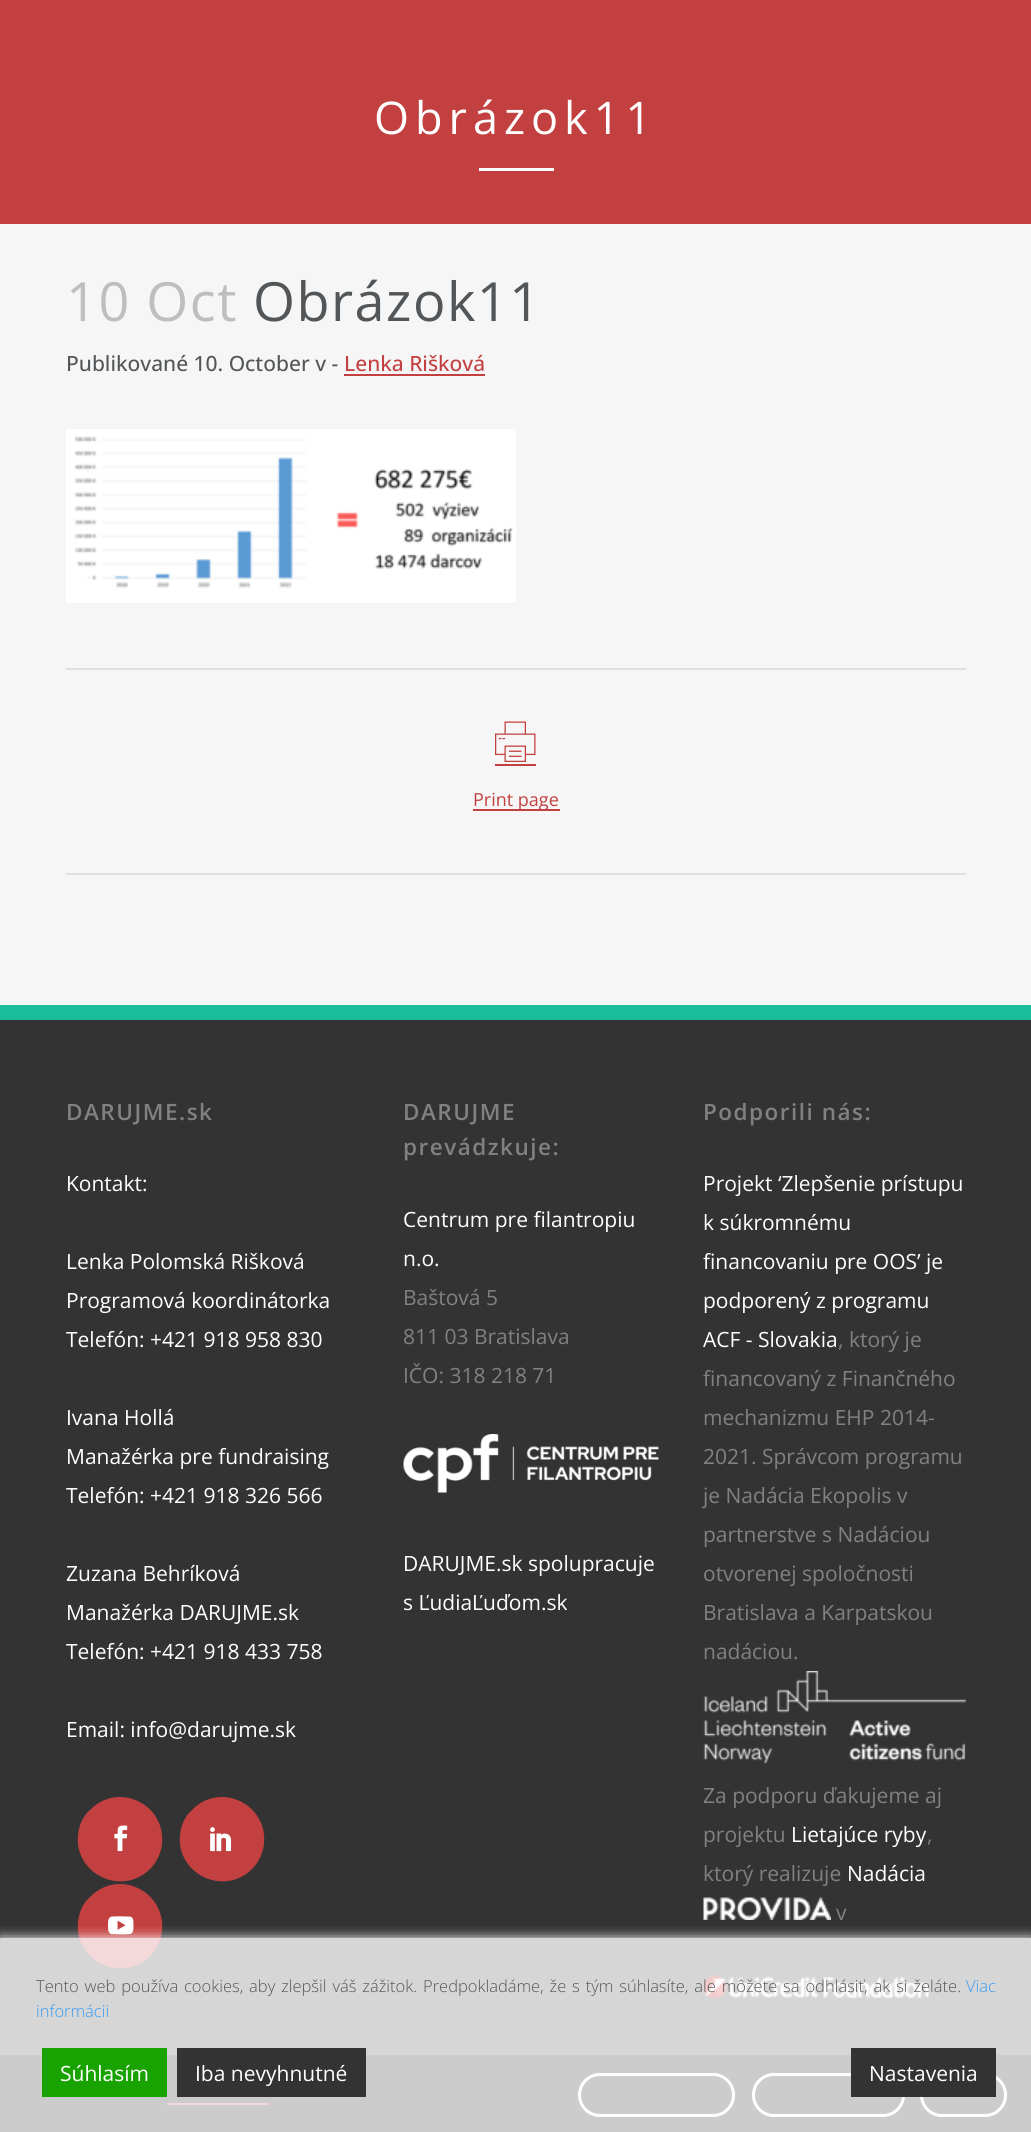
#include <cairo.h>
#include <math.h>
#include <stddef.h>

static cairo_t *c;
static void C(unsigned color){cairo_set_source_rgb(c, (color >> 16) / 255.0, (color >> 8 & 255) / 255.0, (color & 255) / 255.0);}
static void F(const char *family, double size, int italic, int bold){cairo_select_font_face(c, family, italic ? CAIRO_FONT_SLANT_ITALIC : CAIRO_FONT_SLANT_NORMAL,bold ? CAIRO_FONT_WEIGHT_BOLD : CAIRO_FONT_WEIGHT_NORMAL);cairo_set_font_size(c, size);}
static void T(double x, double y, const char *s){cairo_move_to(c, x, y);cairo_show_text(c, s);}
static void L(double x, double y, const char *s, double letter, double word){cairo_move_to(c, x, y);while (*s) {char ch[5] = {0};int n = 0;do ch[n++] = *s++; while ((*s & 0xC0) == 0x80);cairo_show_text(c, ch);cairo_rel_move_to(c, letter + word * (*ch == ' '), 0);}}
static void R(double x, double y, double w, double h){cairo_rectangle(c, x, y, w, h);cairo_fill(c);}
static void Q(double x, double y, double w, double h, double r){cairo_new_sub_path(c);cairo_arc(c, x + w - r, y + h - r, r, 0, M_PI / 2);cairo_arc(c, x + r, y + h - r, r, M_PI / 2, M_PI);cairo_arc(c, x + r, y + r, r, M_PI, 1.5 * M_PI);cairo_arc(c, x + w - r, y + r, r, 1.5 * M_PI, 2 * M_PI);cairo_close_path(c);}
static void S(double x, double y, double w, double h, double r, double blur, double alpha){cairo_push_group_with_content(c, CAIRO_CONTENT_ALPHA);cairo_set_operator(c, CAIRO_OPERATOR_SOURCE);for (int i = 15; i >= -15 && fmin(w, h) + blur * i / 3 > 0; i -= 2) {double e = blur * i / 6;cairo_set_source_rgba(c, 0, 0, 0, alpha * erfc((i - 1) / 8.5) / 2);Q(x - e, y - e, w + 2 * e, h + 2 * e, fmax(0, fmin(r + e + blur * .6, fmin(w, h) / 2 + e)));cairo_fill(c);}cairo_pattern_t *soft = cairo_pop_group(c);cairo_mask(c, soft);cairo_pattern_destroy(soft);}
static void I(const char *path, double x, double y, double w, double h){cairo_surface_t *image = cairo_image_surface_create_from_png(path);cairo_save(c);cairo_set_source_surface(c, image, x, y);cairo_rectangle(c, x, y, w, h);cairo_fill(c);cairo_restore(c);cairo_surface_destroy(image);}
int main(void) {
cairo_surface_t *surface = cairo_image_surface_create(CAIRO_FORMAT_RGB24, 1031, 2132);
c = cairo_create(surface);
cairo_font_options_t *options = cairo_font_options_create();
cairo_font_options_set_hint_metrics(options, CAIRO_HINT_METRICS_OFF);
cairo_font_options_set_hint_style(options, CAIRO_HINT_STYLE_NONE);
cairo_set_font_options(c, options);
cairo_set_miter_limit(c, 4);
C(0xf6f6f6);
cairo_paint(c);
C(0xc34040);
R(0,0,1031,224);
F("Open Sans",45,0,0);
C(0xffffff);
L(374,134,"Obrázok11",6,0);
R(479,168,75,3);
F("Open Sans",54,0,0);
C(0xbebebe);
L(66,321,"10 Oct",1.5,0);
C(0x535658);
L(253,321,"Obrázok11",1.5,0);
F("Open Sans Medium",21,0,0);
T(66,371,"Publikované 10. October v -");
C(0xc34040);
T(344,371,"Lenka Rišková");
R(344,374,141,2);
I("1.png",66,429,450,174);
C(0xe0e0e0);
R(66,668,900,2);
R(66,873,900,2);
I("2.png",495,721,41,41);
C(0xc34040);
R(495,764,41,2);
R(473,809,87,2);
F("Open Sans",18,0,0);
T(473,806,"Print page");
C(0x333333);
R(0,1020,1031,1035);
C(0x1abc9c);
R(0,1005,1031,15);
F("Open Sans SemiBold",22.5,0,0);
C(0x818181);
L(66,1120,"DARUJME.sk",1.5,0);
F("Open Sans",21,0,0);
C(0xffffff);
T(66,1191,"Kontakt:");
T(66,1269,"Lenka Polomská Rišková");
T(66,1308,"Programová koordinátorka");
T(66,1347,"Telefón: +421 918 958 830");
T(66,1425,"Ivana Hollá");
T(66,1464,"Manažérka pre fundraising");
T(66,1503,"Telefón: +421 918 326 566");
T(66,1581,"Zuzana Behríková");
T(66,1620,"Manažérka DARUJME.sk");
T(66,1659,"Telefón: +421 918 433 758");
T(66,1737,"Email: info@darujme.sk");
C(0xc34040);
cairo_new_path(c);
cairo_move_to(c,90,1810);
cairo_curve_to(c,118,1781,166,1804,162,1844);
cairo_curve_to(c,161,1853,157,1862,150,1869);
cairo_curve_to(c,122,1897,74,1874,78,1835);
cairo_curve_to(c,79,1825,83,1816,90,1810);
cairo_close_path(c);
cairo_fill(c);
I("3.png",114,1825,14,27);
cairo_new_path(c);
cairo_move_to(c,192,1810);
cairo_curve_to(c,220,1781,268,1804,264,1844);
cairo_curve_to(c,263,1853,259,1862,252,1869);
cairo_curve_to(c,224,1897,176,1874,180,1835);
cairo_curve_to(c,181,1825,185,1816,192,1810);
cairo_close_path(c);
cairo_fill(c);
I("4.png",210,1827,22,25);
cairo_new_path(c);
cairo_move_to(c,90,1897);
cairo_curve_to(c,118,1868,166,1891,162,1931);
cairo_curve_to(c,161,1940,157,1949,150,1956);
cairo_curve_to(c,122,1984,74,1961,78,1922);
cairo_curve_to(c,79,1912,83,1903,90,1897);
cairo_close_path(c);
cairo_fill(c);
I("5.png",108,1916,26,19);
F("Open Sans SemiBold",22.5,0,0);
C(0x818181);
L(403,1120,"DARUJME",1.5,0);
L(403,1155,"prevádzkuje:",1.5,0);
F("Open Sans",21,0,0);
C(0xffffff);
T(403,1227,"Centrum pre filantropiu");
T(403,1266,"n.o.");
C(0x818181);
T(403,1305,"Baštová 5");
T(403,1344,"811 03 Bratislava");
T(403,1383,"IČO: 318 218 71");
I("6.png",403,1434,256,59);
C(0xffffff);
T(403,1571,"DARUJME.sk spolupracuje");
T(403,1610,"s ĽudiaĽuďom.sk");
F("Open Sans SemiBold",22.5,0,0);
C(0x818181);
L(703,1120,"Podporili nás:",1.5,0);
F("Open Sans",21,0,0);
C(0xffffff);
T(703,1191,"Projekt ‘Zlepšenie prístupu");
T(703,1230,"k súkromnému");
T(703,1269,"financovaniu pre OOS’ je");
T(703,1308,"podporený z programu");
T(703,1347,"ACF - Slovakia");
C(0x818181);
T(838,1347,", ktorý je");
T(703,1386,"financovaný z Finančného");
T(703,1425,"mechanizmu EHP 2014-");
T(703,1464,"2021. Správcom programu");
T(703,1503,"je Nadácia Ekopolis v");
T(703,1542,"partnerstve s Nadáciou");
T(703,1581,"otvorenej spoločnosti");
T(703,1620,"Bratislava a Karpatskou");
T(703,1659,"nadáciou.");
I("7.png",703,1671,263,93);
T(703,1803,"Za podporu ďakujeme aj");
T(703,1842,"projektu");
C(0xffffff);
T(791,1842,"Lietajúce ryby");
C(0x818181);
T(927,1842,",");
T(703,1881,"ktorý realizuje");
C(0xffffff);
T(847,1881,"Nadácia");
I("8.png",703,1897,128,23);
C(0x818181);
T(836,1920,"v");
I("9.png",703,1975,226,23);
C(0x030101);
R(0,2055,1031,77);
C(0xc34040);
R(167,2103,102,2);
Q(579.5,2074.5,154,41,20.5);
C(0xffffff);
cairo_set_line_width(c,3);
cairo_stroke(c);
Q(753.5,2074.5,150,41,20.5);
cairo_stroke(c);
Q(921.5,2074.5,84,41,20.5);
cairo_stroke(c);
cairo_save(c);
cairo_rectangle(c,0,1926,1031,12);
cairo_clip(c);
C(0xffffff);
S(0,1938,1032,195,0,6,1);
cairo_restore(c);
cairo_set_source_rgba(c,1,1,1,0.8);
R(0,1938,1031,194);
F("Open Sans Light",16.5,0,0);
C(0x535658);
L(36,1992,"Tento web používa cookies, aby zlepšil váš zážitok. Predpokladáme, že s tým súhlasíte, ale môžete sa odhlásiť, ak si želáte.",0,1.6);
C(0x359bf5);
T(966,1992,"Viac");
T(36,2017,"informácii");
C(0x18a300);
R(42,2048,125,49);
F("Open Sans",21,0,0);
C(0xffffff);
T(60,2081,"Súhlasím");
C(0x333333);
R(177,2048,189,49);
C(0xffffff);
T(195,2081,"Iba nevyhnutné");
C(0x333333);
R(851,2048,145,49);
C(0xffffff);
T(869,2081,"Nastavenia");
cairo_surface_write_to_png(surface, "o.png");
cairo_font_options_destroy(options);
cairo_destroy(c);
cairo_surface_destroy(surface);
return 0;
}
